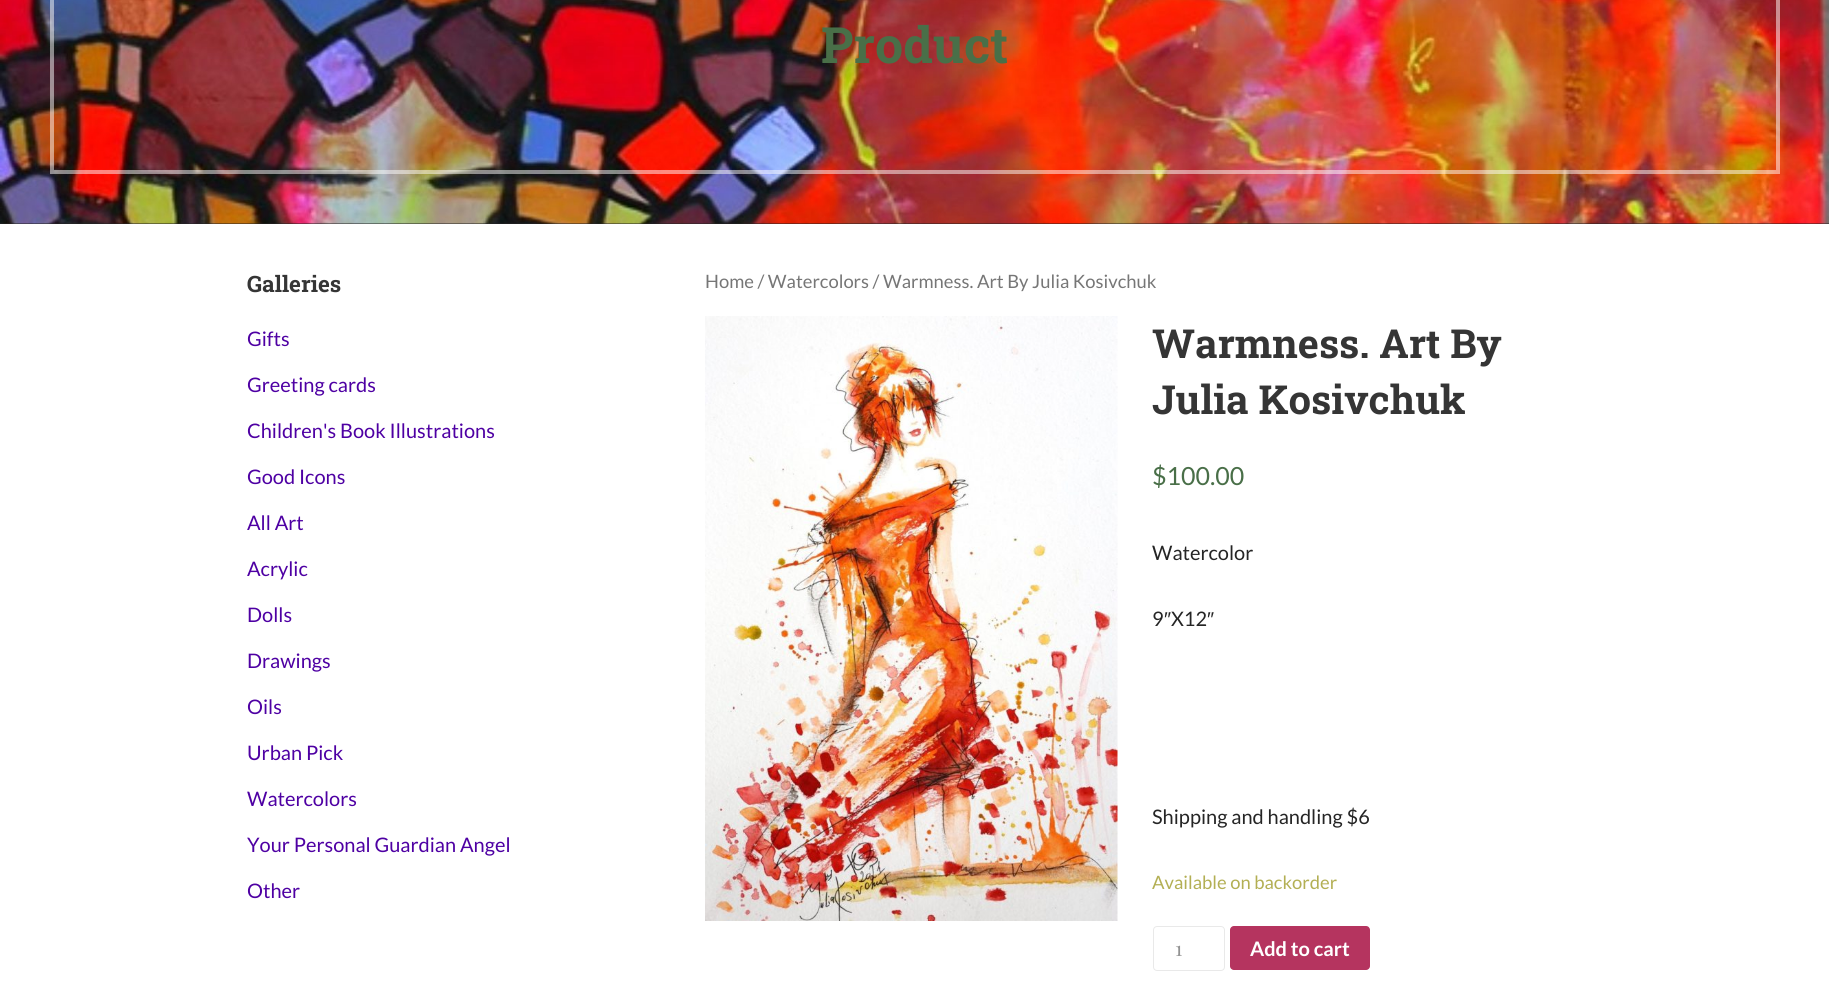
#include <cairo.h>
#include <math.h>
#include <stddef.h>

static cairo_t *c;
static void C(unsigned color){cairo_set_source_rgb(c, (color >> 16) / 255.0, (color >> 8 & 255) / 255.0, (color & 255) / 255.0);}
static void F(const char *family, double size, int italic, int bold){cairo_select_font_face(c, family, italic ? CAIRO_FONT_SLANT_ITALIC : CAIRO_FONT_SLANT_NORMAL,bold ? CAIRO_FONT_WEIGHT_BOLD : CAIRO_FONT_WEIGHT_NORMAL);cairo_set_font_size(c, size);}
static void T(double x, double y, const char *s){cairo_move_to(c, x, y);cairo_show_text(c, s);}
static void R(double x, double y, double w, double h){cairo_rectangle(c, x, y, w, h);cairo_fill(c);}
static void Q(double x, double y, double w, double h, double r){cairo_new_sub_path(c);cairo_arc(c, x + w - r, y + h - r, r, 0, M_PI / 2);cairo_arc(c, x + r, y + h - r, r, M_PI / 2, M_PI);cairo_arc(c, x + r, y + r, r, M_PI, 1.5 * M_PI);cairo_arc(c, x + w - r, y + r, r, 1.5 * M_PI, 2 * M_PI);cairo_close_path(c);}
static void I(const char *path, double x, double y, double w, double h){cairo_surface_t *image = cairo_image_surface_create_from_png(path);cairo_save(c);cairo_set_source_surface(c, image, x, y);cairo_rectangle(c, x, y, w, h);cairo_fill(c);cairo_restore(c);cairo_surface_destroy(image);}
int main(void) {
cairo_surface_t *surface = cairo_image_surface_create(CAIRO_FORMAT_RGB24, 1829, 1007);
c = cairo_create(surface);
cairo_font_options_t *options = cairo_font_options_create();
cairo_font_options_set_hint_metrics(options, CAIRO_HINT_METRICS_OFF);
cairo_font_options_set_hint_style(options, CAIRO_HINT_STYLE_NONE);
cairo_set_font_options(c, options);
cairo_set_miter_limit(c, 4);
C(0xffffff);
cairo_paint(c);
C(0x252525);
R(0,223,1829,1);
I("1.png",0,0,1829,224);
cairo_rectangle(c,52,-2,1726,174);
cairo_set_source_rgba(c,1,1,1,0.5);
cairo_set_line_width(c,4);
cairo_stroke(c);
F("Roboto Slab",50,0,1);
C(0x496f48);
T(821,63,"Product");
F("Roboto Slab",22.5,0,1);
C(0x353535);
T(247,292,"Galleries");
F("Lato",20,0,0);
C(0x4e00a3);
T(247,346,"Gifts");
T(247,392,"Greeting cards");
T(247,438,"Children's Book Illustrations");
T(247,484,"Good Icons");
T(247,530,"All Art");
T(247,576,"Acrylic");
T(247,622,"Dolls");
T(247,668,"Drawings");
T(247,714,"Oils");
T(247,760,"Urban Pick");
T(247,806,"Watercolors");
T(247,852,"Your Personal Guardian Angel");
T(247,898,"Other");
F("Lato",18.4,0,0);
C(0x767676);
T(705,288,"Home / Watercolors / Warmness. Art By Julia Kosivchuk");
I("2.png",705,316,413,605);
F("Roboto Slab",40,0,1);
C(0x353535);
T(1152,358,"Warmness. Art By");
T(1152,414,"Julia Kosivchuk");
F("Lato",25,0,0);
C(0x496f48);
T(1152,485,"$100.00");
F("Lato",20,0,0);
C(0x252525);
T(1152,560,"Watercolor");
T(1152,626,"9");
F("Liberation Sans",20,0,0);
T(1164,626,"″");
F("Lato",20,0,0);
T(1171,626,"X12");
F("Liberation Sans",20,0,0);
T(1207,626,"″");
F("Lato",20,0,0);
T(1152,824,"Shipping and handling $6");
F("Lato",18.4,0,0);
C(0xb3af54);
T(1152,889,"Available on backorder");
Q(1153.5,926.5,71,44,3.5);
C(0xe9e9e9);
cairo_set_line_width(c,1);
cairo_stroke(c);
F("Playfair Display",20,0,0);
C(0x929292);
T(1175,956,"1");
C(0xb5345f);
Q(1230,926,140,44,4);
cairo_fill(c);
F("Lato",20,0,1);
C(0xffffff);
T(1250,956,"Add to cart");
cairo_surface_write_to_png(surface, "o.png");
cairo_font_options_destroy(options);
cairo_destroy(c);
cairo_surface_destroy(surface);
return 0;
}
